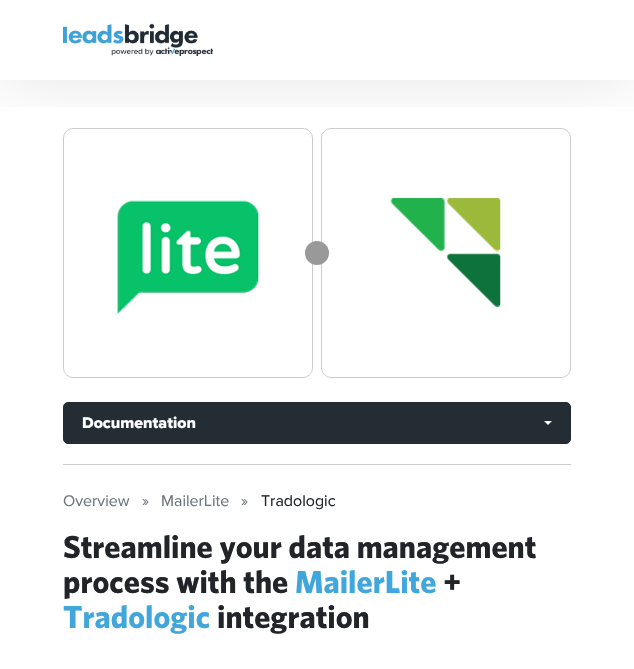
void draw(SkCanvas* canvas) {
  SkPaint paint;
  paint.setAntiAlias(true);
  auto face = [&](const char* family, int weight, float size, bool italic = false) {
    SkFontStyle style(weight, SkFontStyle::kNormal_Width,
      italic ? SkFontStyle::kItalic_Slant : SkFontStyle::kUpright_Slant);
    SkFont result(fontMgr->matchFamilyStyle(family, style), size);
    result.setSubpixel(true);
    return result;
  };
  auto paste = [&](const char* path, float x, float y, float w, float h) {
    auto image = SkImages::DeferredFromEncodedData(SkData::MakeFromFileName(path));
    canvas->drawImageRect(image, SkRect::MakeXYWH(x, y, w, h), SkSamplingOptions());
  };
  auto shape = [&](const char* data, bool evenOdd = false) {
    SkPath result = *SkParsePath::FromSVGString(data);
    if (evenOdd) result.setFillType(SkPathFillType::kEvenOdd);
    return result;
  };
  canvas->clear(0xffffffff);
  paint.setStroke(true);
  paint.setStrokeWidth(1);
  paint.setColor(0xffcccccc);
  canvas->drawRoundRect(SkRect::MakeXYWH(63.5f, 128.5f, 249, 249), 9.5f, 9.5f, paint);
  canvas->drawRoundRect(SkRect::MakeXYWH(321.5f, 128.5f, 249, 249), 9.5f, 9.5f, paint);
  canvas->save();
  canvas->clipRect(SkRect::MakeXYWH(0, 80, 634, 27));
  paint.setStroke(false);
  paint.setColor(0x1a000000);
  paint.setMaskFilter(SkMaskFilter::MakeBlur(kNormal_SkBlurStyle, 32.5f));
  canvas->drawRect(SkRect::MakeXYWH(0, 0, 634, 80), paint);
  paint.setMaskFilter(nullptr);
  canvas->restore();
  paste("img/1.png", 63, 23, 150, 33);
  paste("img/2.png", 117, 200, 142, 114);
  paint.setColor(0xff999999);
  canvas->drawCircle(317, 253, 12, paint);
  paste("img/3.png", 390, 198, 111, 109);
  paint.setColor(0xffcccccc);
  canvas->drawRect(SkRect::MakeXYWH(63, 464, 508, 1), paint);
  paint.setColor(0xff242c34);
  canvas->drawRoundRect(SkRect::MakeXYWH(63.5f, 402.5f, 507, 41), 4.5f, 4.5f, paint);
  paint.setStroke(true);
  canvas->drawRoundRect(SkRect::MakeXYWH(63.5f, 402.5f, 507, 41), 4.5f, 4.5f, paint);
  paint.setStroke(false);
  paint.setColor(0xffffffff);
  canvas->drawPath(shape("M544 421H552L548 425Z"), paint);
  auto f0 = face("Proxima Nova", 800, 16);
  canvas->drawString("Documentation", 82, 428, f0, paint);
  auto f1 = face("Proxima Nova", 400, 16);
  paint.setColor(0xff6c757d);
  {
    const struct { const char* s; float x, y; } items[] = {
      {"Overview", 63, 506},
      {"»", 142, 506},
      {"MailerLite", 161, 506},
      {"»", 241, 506},
    };
    for (auto [s, x, y] : items) {
      canvas->drawString(s, x, y, f1, paint);
    }
  }
  paint.setColor(0xff212529);
  canvas->drawString("Tradologic", 261, 506, f1, paint);
  auto f2 = face("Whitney", 700, 32);
  canvas->drawString("Streamline your data management", 63, 558, f2, paint);
  canvas->drawString("process with the", 63, 593, f2, paint);
  paint.setColor(0xff41a6dc);
  canvas->drawString("MailerLite", 295, 593, f2, paint);
  paint.setColor(0xff212529);
  canvas->drawString("+", 443, 593, f2, paint);
  paint.setColor(0xff41a6dc);
  canvas->drawString("Tradologic", 63, 628, f2, paint);
  paint.setColor(0xff212529);
  canvas->drawString("integration", 217, 628, f2, paint);
}
